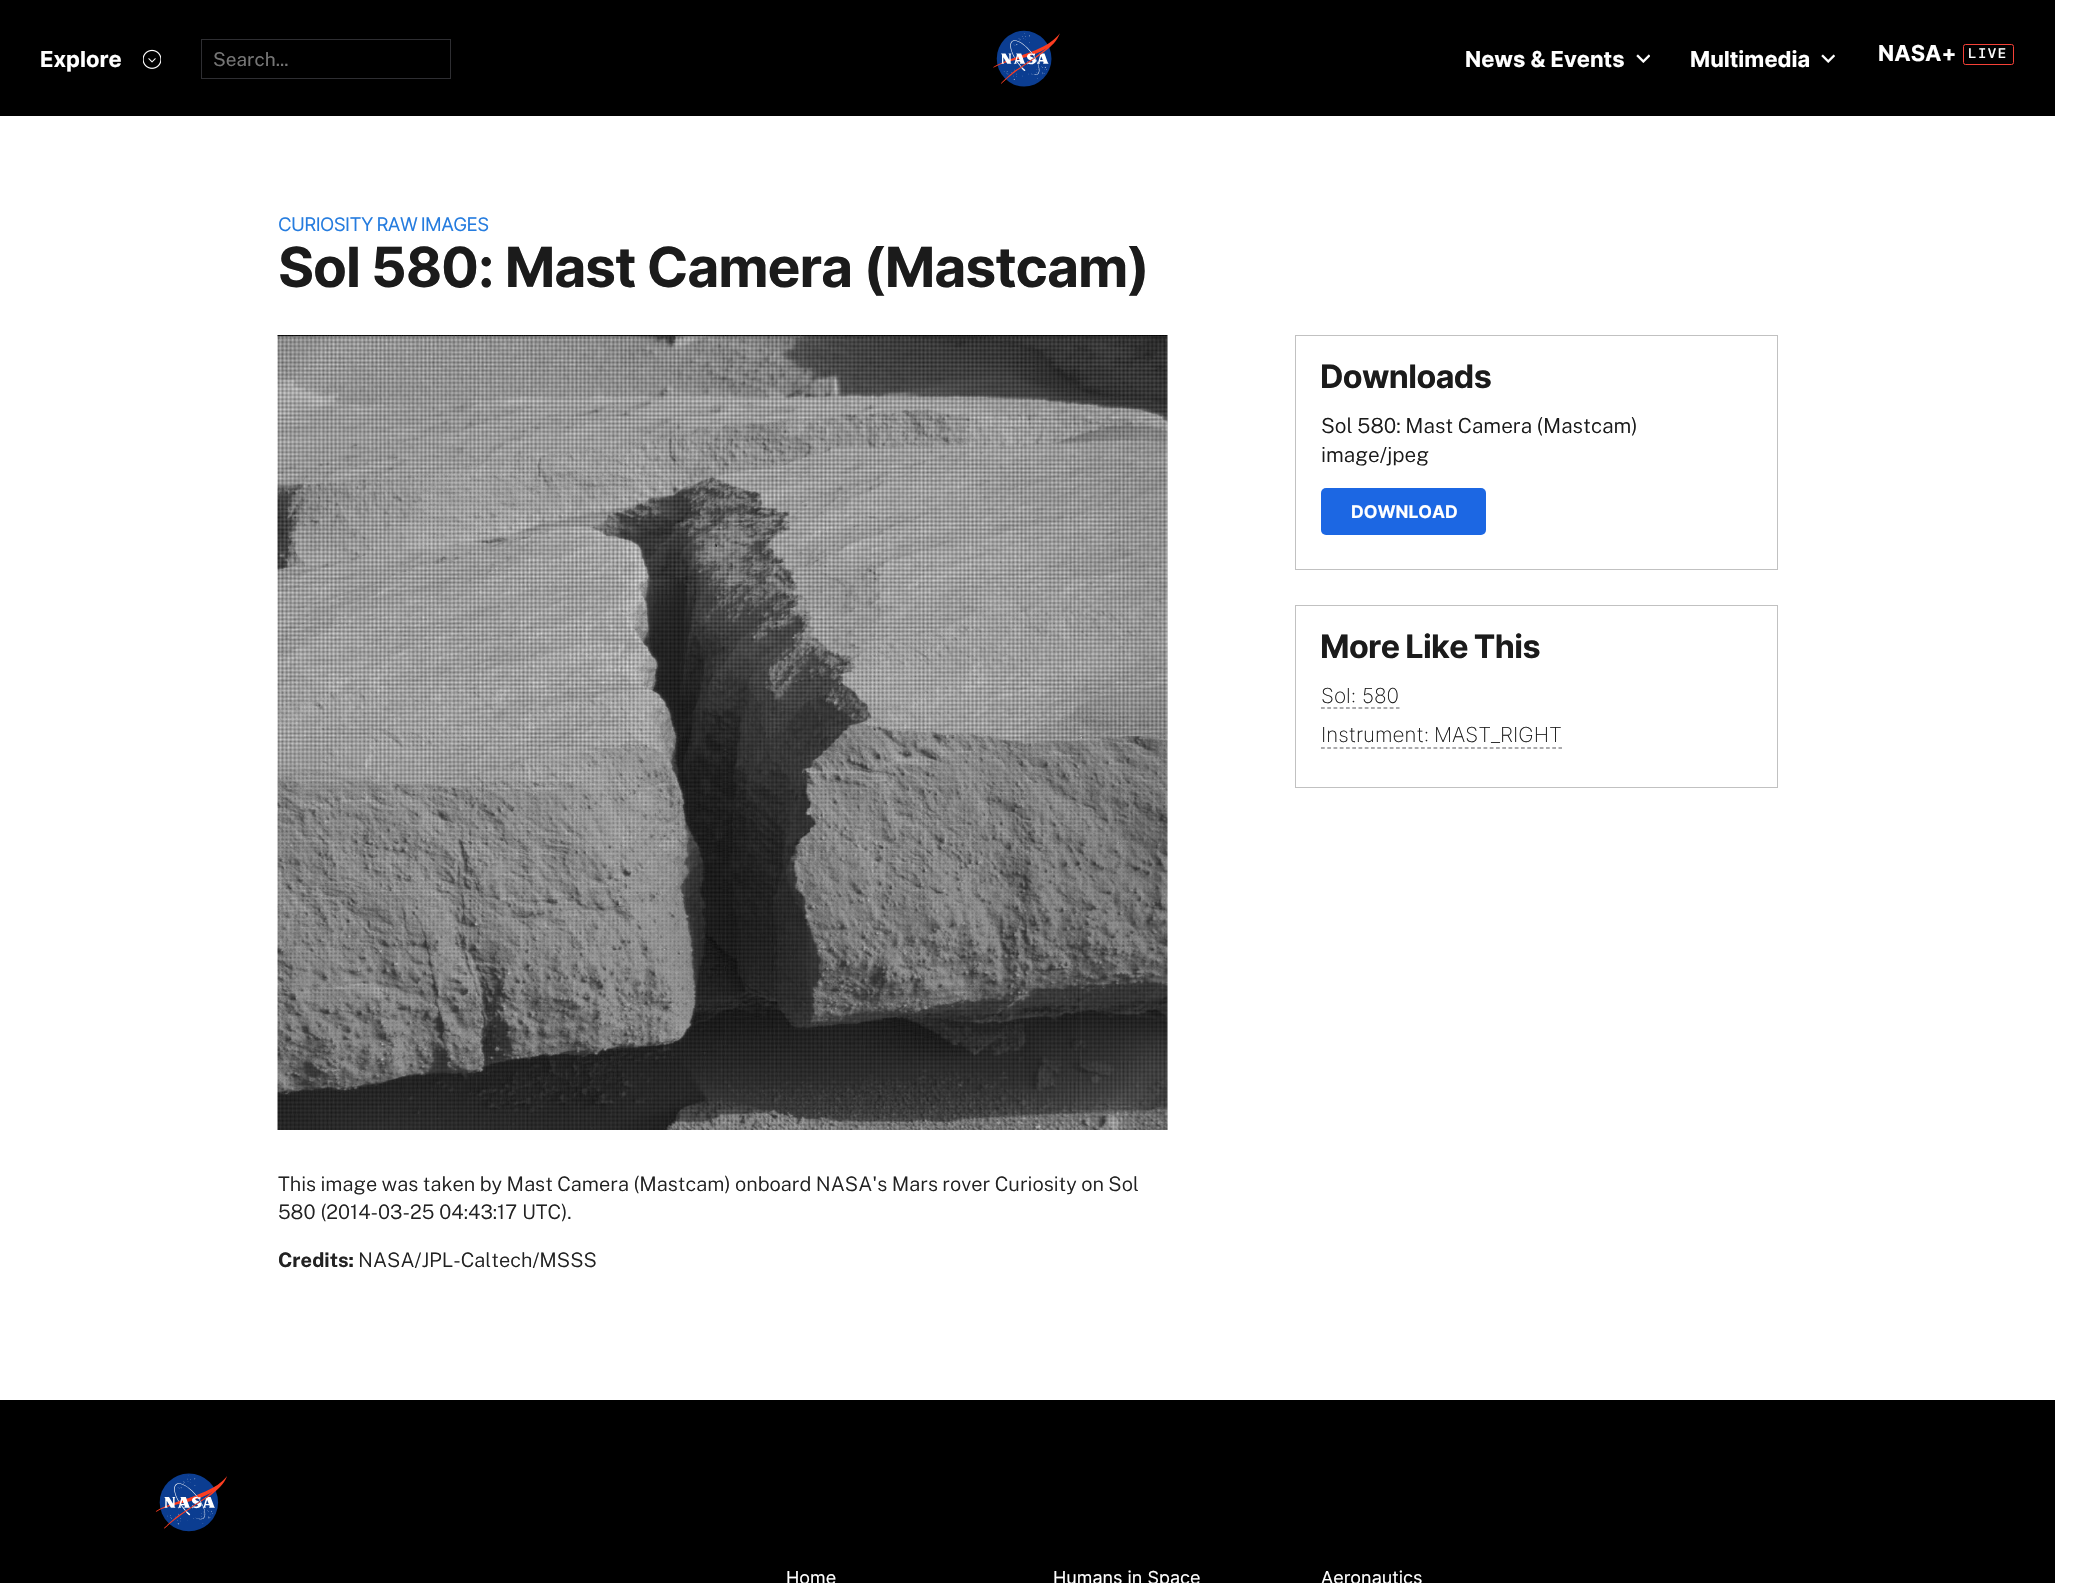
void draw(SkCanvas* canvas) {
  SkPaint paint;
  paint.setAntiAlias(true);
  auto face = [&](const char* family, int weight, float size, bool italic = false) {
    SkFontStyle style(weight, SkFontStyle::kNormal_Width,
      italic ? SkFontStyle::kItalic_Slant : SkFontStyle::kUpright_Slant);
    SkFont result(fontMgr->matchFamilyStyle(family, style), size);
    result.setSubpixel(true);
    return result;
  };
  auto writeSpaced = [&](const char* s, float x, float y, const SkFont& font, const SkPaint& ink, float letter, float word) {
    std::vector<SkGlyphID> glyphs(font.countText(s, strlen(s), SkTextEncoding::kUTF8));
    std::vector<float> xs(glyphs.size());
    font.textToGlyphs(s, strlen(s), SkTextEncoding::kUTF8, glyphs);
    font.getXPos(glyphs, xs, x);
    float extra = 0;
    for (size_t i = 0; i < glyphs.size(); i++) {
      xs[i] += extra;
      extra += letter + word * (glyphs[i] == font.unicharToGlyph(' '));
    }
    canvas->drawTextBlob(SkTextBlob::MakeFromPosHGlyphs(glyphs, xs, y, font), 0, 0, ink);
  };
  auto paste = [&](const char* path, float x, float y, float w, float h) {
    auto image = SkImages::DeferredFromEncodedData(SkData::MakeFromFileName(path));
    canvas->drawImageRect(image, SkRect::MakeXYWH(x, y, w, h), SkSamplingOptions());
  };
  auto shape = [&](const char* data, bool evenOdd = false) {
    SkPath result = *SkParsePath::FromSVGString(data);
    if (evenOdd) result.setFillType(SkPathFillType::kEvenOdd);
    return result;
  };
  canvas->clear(0xffffffff);
  paint.setColor(0xff000000);
  canvas->drawRect(SkRect::MakeXYWH(0, 0, 2055, 116), paint);
  paste("img/1.png", 143, 49, 18, 20);
  paint.setStroke(true);
  paint.setStrokeWidth(1);
  paint.setColor(0xff2e2e32);
  canvas->drawRect(SkRect::MakeXYWH(201.5f, 39.5f, 249, 39), paint);
  paste("img/2.png", 993, 30, 67, 57);
  paste("img/3.png", 1636, 54, 14, 9);
  paste("img/4.png", 1821, 54, 14, 9);
  paint.setColor(0xfff64137);
  canvas->drawRoundRect(SkRect::MakeXYWH(1963.5f, 44.5f, 50, 20), 2, 2, paint);
  paint.setColor(0xffc1c1c1);
  canvas->drawRect(SkRect::MakeXYWH(1295.5f, 335.5f, 482, 234), paint);
  paint.setStroke(false);
  paint.setColor(0xff1c67e3);
  canvas->drawRoundRect(SkRect::MakeXYWH(1321, 488, 165, 47), 5, 5, paint);
  paint.setStroke(true);
  paint.setColor(0xffc1c1c1);
  canvas->drawRect(SkRect::MakeXYWH(1295.5f, 605.5f, 482, 182), paint);
  paint.setStrokeWidth(1.2f);
  paint.setColor(0xff58585b);
  paint.setPathEffect(SkDashPathEffect::Make({{3.75f, 2.5f}}, 0));
  canvas->drawPath(shape("M1321 708H1399.5"), paint);
  paint.setPathEffect(nullptr);
  paint.setPathEffect(SkDashPathEffect::Make({{3.75f, 2.5f}}, 0));
  canvas->drawPath(shape("M1321 748H1562"), paint);
  paint.setPathEffect(nullptr);
  paste("img/5.png", 277, 335, 891, 795);
  paint.setStroke(false);
  paint.setColor(0xff000000);
  canvas->drawRect(SkRect::MakeXYWH(0, 1400, 2055, 183), paint);
  paste("img/6.png", 155, 1473, 72, 59);
  auto f0 = face("Inter", 700, 22);
  paint.setColor(0xffffffff);
  canvas->drawString("Explore", 40, 67, f0, paint);
  auto f1 = face("Public Sans", 400, 19);
  paint.setColor(0xff757575);
  canvas->drawString("Search...", 213, 66, f1, paint);
  paint.setColor(0xffffffff);
  {
    const struct { const char* s; float x, y; } items[] = {
      {"News & Events", 1465, 67},
      {"Multimedia", 1690, 67},
      {"NASA+", 1878, 61},
    };
    for (auto [s, x, y] : items) {
      canvas->drawString(s, x, y, f0, paint);
    }
  }
  auto f2 = face("DM Mono", 500, 14);
  writeSpaced("LIVE", 1968, 58, f2, paint, 1.5f, 0);
  auto f3 = face("Inter", 400, 18.75f);
  paint.setColor(0xff257cdf);
  writeSpaced("CURIOSITY RAW IMAGES", 278, 231, f3, paint, -0.6f, -1);
  auto f4 = face("Inter", 700, 55.3f);
  paint.setColor(0xff1b1b1b);
  writeSpaced("Sol 580: Mast Camera (Mastcam)", 278, 287, f4, paint, -1.1f, -0.5f);
  auto f5 = face("Inter", 700, 32.25f);
  writeSpaced("Downloads", 1320, 388, f5, paint, -0.6f, 0);
  auto f6 = face("Public Sans", 300, 20.75f);
  writeSpaced("Sol 580: Mast Camera (Mastcam)", 1321, 433, f6, paint, 0, -0.5f);
  canvas->drawString("image/jpeg", 1321, 462, f6, paint);
  auto f7 = face("Inter", 700, 17.5f);
  paint.setColor(0xffffffff);
  canvas->drawString("DOWNLOAD", 1351, 518, f7, paint);
  paint.setColor(0xff1b1b1b);
  writeSpaced("More Like This", 1320, 658, f5, paint, -0.6f, -1);
  auto f8 = face("Inter", 200, 20.75f);
  canvas->drawString("Sol: 580", 1321, 703, f8, paint);
  writeSpaced("Instrument: MAST_RIGHT", 1321, 742, f8, paint, 0, -1);
  auto f9 = face("Public Sans", 300, 20);
  paint.setColor(0xff222222);
  writeSpaced("This image was taken by Mast Camera (Mastcam) onboard NASA's Mars rover Curiosity on Sol", 278, 1191, f9, paint, 0, -0.5f);
  canvas->drawString("580 (2014-03-25 04:43:17 UTC).", 278, 1219, f9, paint);
  auto f10 = face("Public Sans", 700, 20);
  canvas->drawString("Credits:", 278, 1267, f10, paint);
  canvas->drawString("NASA/JPL-Caltech/MSSS", 358, 1267, f9, paint);
  auto f11 = face("Inter", 400, 18);
  paint.setColor(0xffffffff);
  {
    const struct { const char* s; float x, y; } items[] = {
      {"Home", 786, 1584},
      {"Humans in Space", 1053, 1584},
      {"Aeronautics", 1321, 1584},
    };
    for (auto [s, x, y] : items) {
      canvas->drawString(s, x, y, f11, paint);
    }
  }
}
